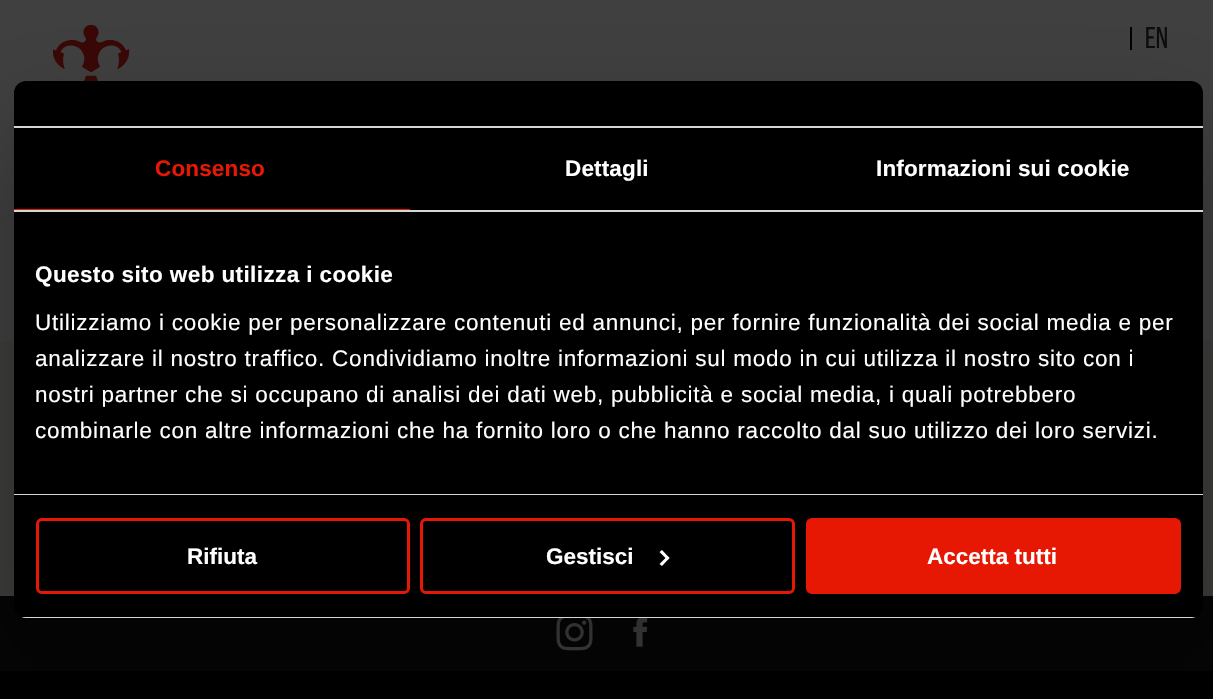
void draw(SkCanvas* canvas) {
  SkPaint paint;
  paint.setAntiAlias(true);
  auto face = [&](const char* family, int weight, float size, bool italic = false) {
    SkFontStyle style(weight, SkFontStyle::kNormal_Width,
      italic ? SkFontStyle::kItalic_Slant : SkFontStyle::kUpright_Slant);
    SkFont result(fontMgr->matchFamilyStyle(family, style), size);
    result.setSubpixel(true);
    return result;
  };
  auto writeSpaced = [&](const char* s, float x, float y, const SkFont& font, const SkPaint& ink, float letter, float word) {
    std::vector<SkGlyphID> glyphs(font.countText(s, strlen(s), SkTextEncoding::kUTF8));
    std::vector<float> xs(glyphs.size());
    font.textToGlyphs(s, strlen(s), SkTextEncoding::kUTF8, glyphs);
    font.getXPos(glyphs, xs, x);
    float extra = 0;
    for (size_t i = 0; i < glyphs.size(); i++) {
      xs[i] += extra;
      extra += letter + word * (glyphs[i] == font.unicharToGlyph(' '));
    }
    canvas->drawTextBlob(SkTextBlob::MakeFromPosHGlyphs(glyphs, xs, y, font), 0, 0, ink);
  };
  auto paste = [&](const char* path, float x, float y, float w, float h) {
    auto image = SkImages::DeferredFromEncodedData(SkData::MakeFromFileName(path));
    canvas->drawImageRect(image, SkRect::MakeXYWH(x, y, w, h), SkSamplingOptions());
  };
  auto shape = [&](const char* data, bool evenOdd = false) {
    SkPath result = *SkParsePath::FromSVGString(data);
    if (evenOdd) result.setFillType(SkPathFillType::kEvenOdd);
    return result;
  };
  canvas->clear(0xff404040);
  paste("img/1.png", 53, 24, 77, 57);
  {
    const struct { float x, y, w, h; SkColor color; } items[] = {
      {1130, 27, 2, 23, 0xff000000},
      {0, 341, 1213, 255, 0xff3d3d3b},
      {0, 671, 1213, 28, 0xff000000},
      {0, 596, 1213, 75, 0xff050505},
    };
    for (auto [x, y, w, h, color] : items) {
      paint.setColor(color);
      canvas->drawRect(SkRect::MakeXYWH(x, y, w, h), paint);
    }
  }
  paste("img/2.png", 556, 618, 37, 33);
  paste("img/3.png", 633, 618, 15, 29);
  paint.setColor(0x4d000000);
  paint.setMaskFilter(SkMaskFilter::MakeBlur(kNormal_SkBlurStyle, 51));
  canvas->drawRoundRect(SkRect::MakeXYWH(14, 129, 1189, 537), 12, 12, paint);
  paint.setMaskFilter(nullptr);
  paint.setColor(0xff000000);
  canvas->drawRoundRect(SkRect::MakeXYWH(14, 81, 1189, 537), 12, 12, paint);
  {
    const struct { float x, y, w, h; SkColor color; } items[] = {
      {14, 126, 1189, 2, 0xffd6d6d6},
      {14, 210, 1189, 2, 0xffd6d6d6},
      {14, 209, 396, 1, 0xffe61804},
      {14, 494, 1189, 1, 0xffd6d6d6},
    };
    for (auto [x, y, w, h, color] : items) {
      paint.setColor(color);
      canvas->drawRect(SkRect::MakeXYWH(x, y, w, h), paint);
    }
  }
  canvas->save();
  canvas->clipPath(shape("M26 81H1191C1197.5 81 1203 86.5 1203 93V606C1203 612.5 1197.5 618 1191 618H26C19.5 618 14 612.5 14 606V93C14 86.5 19.5 81 26 81Z"), true);
  canvas->drawRect(SkRect::MakeXYWH(14, 617, 1189, 1), paint);
  canvas->restore();
  paint.setStroke(true);
  paint.setStrokeWidth(3);
  paint.setColor(0xffe61804);
  canvas->drawRoundRect(SkRect::MakeXYWH(37.5f, 519.5f, 371, 73), 4.5f, 4.5f, paint);
  canvas->drawRoundRect(SkRect::MakeXYWH(421.5f, 519.5f, 372, 73), 4.5f, 4.5f, paint);
  paint.setStroke(false);
  paint.setColor(0xffffffff);
  canvas->drawPath(shape("M662 550L669.5 558L667.5 560L659.5 552Z"), paint);
  canvas->drawPath(shape("M667.5 556L669.5 558L662 566L659.5 564Z"), paint);
  paint.setColor(0xffe61804);
  canvas->drawRoundRect(SkRect::MakeXYWH(807.5f, 519.5f, 372, 73), 4.5f, 4.5f, paint);
  paint.setStroke(true);
  canvas->drawRoundRect(SkRect::MakeXYWH(807.5f, 519.5f, 372, 73), 4.5f, 4.5f, paint);
  auto f0 = face("Bebas Neue", 400, 30);
  paint.setStroke(false);
  paint.setColor(0xff0d0d0d);
  canvas->drawString("EN", 1145, 48, f0, paint);
  auto f1 = face("Liberation Sans", 700, 22.5f);
  paint.setColor(0xffe61804);
  writeSpaced("Consenso", 155, 176, f1, paint, 0.15f, 0);
  paint.setColor(0xffffffff);
  writeSpaced("Dettagli", 565, 176, f1, paint, 0.15f, 0);
  writeSpaced("Informazioni sui cookie", 876, 176, f1, paint, 0.15f, 0);
  writeSpaced("Questo sito web utilizza i cookie", 35, 282, f1, paint, 0.4f, 0);
  auto f2 = face("Liberation Sans", 400, 22.5f);
  {
    const struct { const char* s; float x, y; } items[] = {
      {"Utilizziamo i cookie per personalizzare contenuti ed annunci, per fornire funzionalità dei social media e per", 35, 330},
      {"analizzare il nostro traffico. Condividiamo inoltre informazioni sul modo in cui utilizza il nostro sito con i", 35, 366},
      {"nostri partner che si occupano di analisi dei dati web, pubblicità e social media, i quali potrebbero", 35, 402},
      {"combinarle con altre informazioni che ha fornito loro o che hanno raccolto dal suo utilizzo dei loro servizi.", 35, 438},
    };
    for (auto [s, x, y] : items) {
      writeSpaced(s, x, y, f2, paint, 0.75f, 0);
    }
  }
  {
    const struct { const char* s; float x, y; } items[] = {
      {"Rifiuta", 187, 564},
      {"Gestisci", 546, 564},
      {"Accetta tutti", 927, 564},
    };
    for (auto [s, x, y] : items) {
      canvas->drawString(s, x, y, f1, paint);
    }
  }
}
